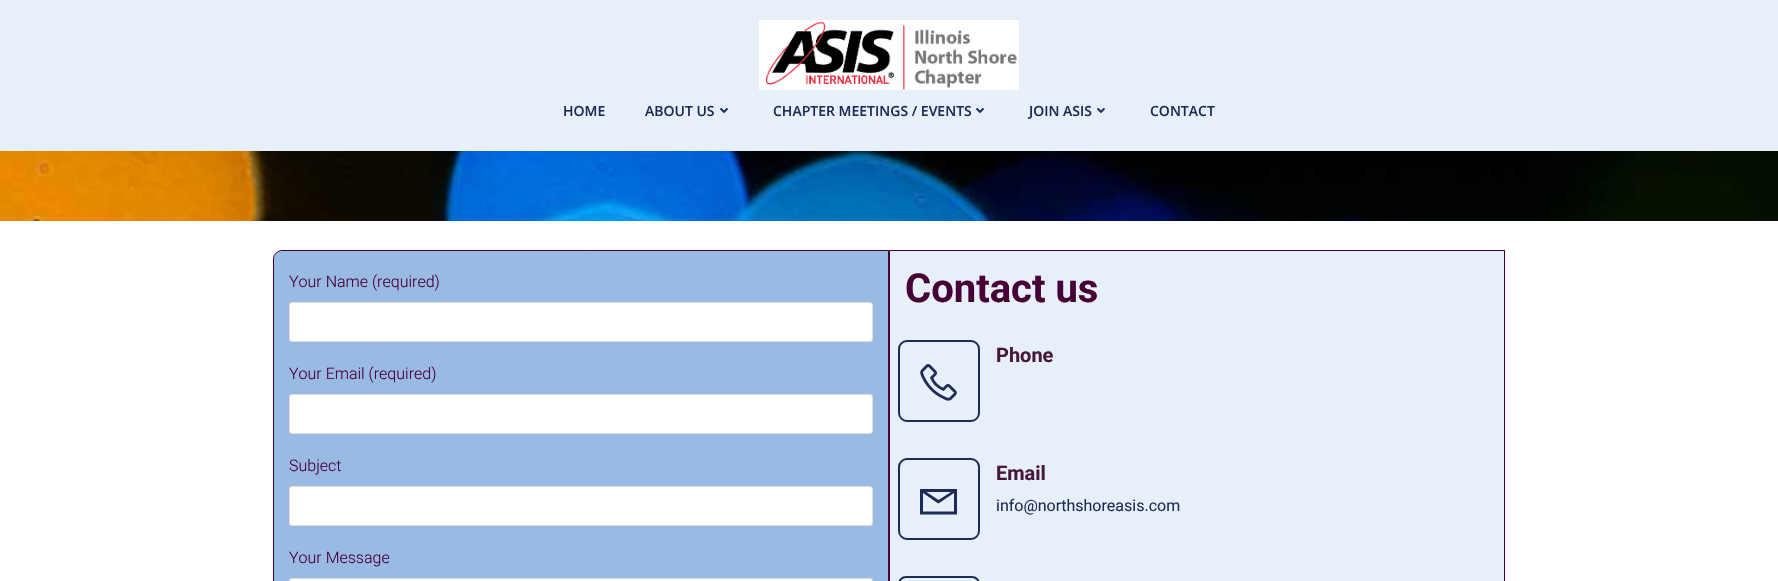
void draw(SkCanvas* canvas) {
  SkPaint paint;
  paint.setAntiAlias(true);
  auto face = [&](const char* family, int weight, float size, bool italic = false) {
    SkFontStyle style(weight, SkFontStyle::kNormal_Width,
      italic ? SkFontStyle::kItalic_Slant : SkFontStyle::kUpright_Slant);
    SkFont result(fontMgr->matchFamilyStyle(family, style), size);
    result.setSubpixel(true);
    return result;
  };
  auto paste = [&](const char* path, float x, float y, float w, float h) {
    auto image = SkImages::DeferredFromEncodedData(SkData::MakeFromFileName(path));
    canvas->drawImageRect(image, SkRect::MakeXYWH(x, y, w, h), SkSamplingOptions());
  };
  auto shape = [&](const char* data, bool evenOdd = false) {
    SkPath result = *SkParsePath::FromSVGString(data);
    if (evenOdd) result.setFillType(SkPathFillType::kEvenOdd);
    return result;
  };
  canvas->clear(0xffffffff);
  paint.setColor(0xffe7f0f9);
  canvas->drawRect(SkRect::MakeXYWH(0, 0, 1778, 151), paint);
  paste("img/1.png", 759, 20, 260, 70);
  paste("img/2.png", 720, 108, 8, 5);
  paste("img/2.png", 976, 108, 8, 5);
  paste("img/2.png", 1097, 108, 8, 5);
  paste("img/3.png", 0, 151, 1778, 70);
  paint.setColor(0xff99bbe3);
  canvas->drawPath(shape("M282 250.5H888.5V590.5H282C277.5 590.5 273.5 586.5 273.5 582V259C273.5 254.5 277.5 250.5 282 250.5Z"), paint);
  paint.setStroke(true);
  paint.setStrokeWidth(1);
  paint.setColor(0xff470037);
  canvas->drawPath(shape("M282 250.5H888.5V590.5H282C277.5 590.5 273.5 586.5 273.5 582V259C273.5 254.5 277.5 250.5 282 250.5Z"), paint);
  paint.setStroke(false);
  paint.setColor(0xffffffff);
  canvas->drawRoundRect(SkRect::MakeXYWH(289.5f, 302.5f, 583, 39), 2.5f, 2.5f, paint);
  paint.setStroke(true);
  paint.setColor(0xffdedede);
  canvas->drawRoundRect(SkRect::MakeXYWH(289.5f, 302.5f, 583, 39), 2.5f, 2.5f, paint);
  paint.setStroke(false);
  paint.setColor(0xffffffff);
  canvas->drawRoundRect(SkRect::MakeXYWH(289.5f, 394.5f, 583, 39), 2.5f, 2.5f, paint);
  paint.setStroke(true);
  paint.setColor(0xffdedede);
  canvas->drawRoundRect(SkRect::MakeXYWH(289.5f, 394.5f, 583, 39), 2.5f, 2.5f, paint);
  paint.setStroke(false);
  paint.setColor(0xffffffff);
  canvas->drawRoundRect(SkRect::MakeXYWH(289.5f, 486.5f, 583, 39), 2.5f, 2.5f, paint);
  paint.setStroke(true);
  paint.setColor(0xffdedede);
  canvas->drawRoundRect(SkRect::MakeXYWH(289.5f, 486.5f, 583, 39), 2.5f, 2.5f, paint);
  paint.setStroke(false);
  paint.setColor(0xffffffff);
  canvas->drawRoundRect(SkRect::MakeXYWH(289.5f, 578.5f, 583, 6), 2.5f, 2.5f, paint);
  paint.setStroke(true);
  paint.setColor(0xffdedede);
  canvas->drawRoundRect(SkRect::MakeXYWH(289.5f, 578.5f, 583, 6), 2.5f, 2.5f, paint);
  paint.setStroke(false);
  paint.setColor(0xffe7f0f9);
  canvas->drawRect(SkRect::MakeXYWH(889.5f, 250.5f, 615, 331), paint);
  paint.setStroke(true);
  paint.setColor(0xff470037);
  canvas->drawRect(SkRect::MakeXYWH(889.5f, 250.5f, 615, 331), paint);
  paint.setStrokeWidth(2);
  paint.setColor(0xff1f2b57);
  canvas->drawRoundRect(SkRect::MakeXYWH(899, 341, 80, 80), 8, 8, paint);
  paste("img/4.png", 920, 364, 37, 37);
  canvas->drawRoundRect(SkRect::MakeXYWH(899, 459, 80, 80), 8, 8, paint);
  paint.setStroke(false);
  canvas->drawPath(shape("M920 489H957V514.5H920ZM926.5 492L938.5 500L951 492ZM923 493V511.5H954V493L938.5 503.5L937.5 503Z"), paint);
  paint.setStroke(true);
  canvas->drawRoundRect(SkRect::MakeXYWH(899, 577, 80, 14), 8, 8, paint);
  auto f0 = face("Open Sans", 600, 14);
  paint.setStroke(false);
  {
    const struct { const char* s; float x, y; } items[] = {
      {"HOME", 563, 116},
      {"ABOUT US", 645, 116},
      {"CHAPTER MEETINGS / EVENTS", 773, 116},
      {"JOIN ASIS", 1029, 116},
      {"CONTACT", 1150, 116},
    };
    for (auto [s, x, y] : items) {
      canvas->drawString(s, x, y, f0, paint);
    }
  }
  auto f1 = face("Roboto", 300, 16);
  paint.setColor(0xff470037);
  {
    const struct { const char* s; float x, y; } items[] = {
      {"Your Name (required)", 289, 287},
      {"Your Email (required)", 289, 379},
      {"Subject", 289, 471},
      {"Your Message", 289, 563},
    };
    for (auto [s, x, y] : items) {
      canvas->drawString(s, x, y, f1, paint);
    }
  }
  auto f2 = face("Roboto", 700, 40);
  canvas->drawString("Contact us", 905, 302, f2, paint);
  auto f3 = face("Roboto", 700, 20);
  paint.setColor(0xff47183c);
  canvas->drawString("Phone", 996, 362, f3, paint);
  canvas->drawString("Email", 996, 480, f3, paint);
  auto f4 = face("Roboto", 400, 16);
  paint.setColor(0xff1f2b57);
  canvas->drawString("info@northshoreasis.com", 996, 511, f4, paint);
}
